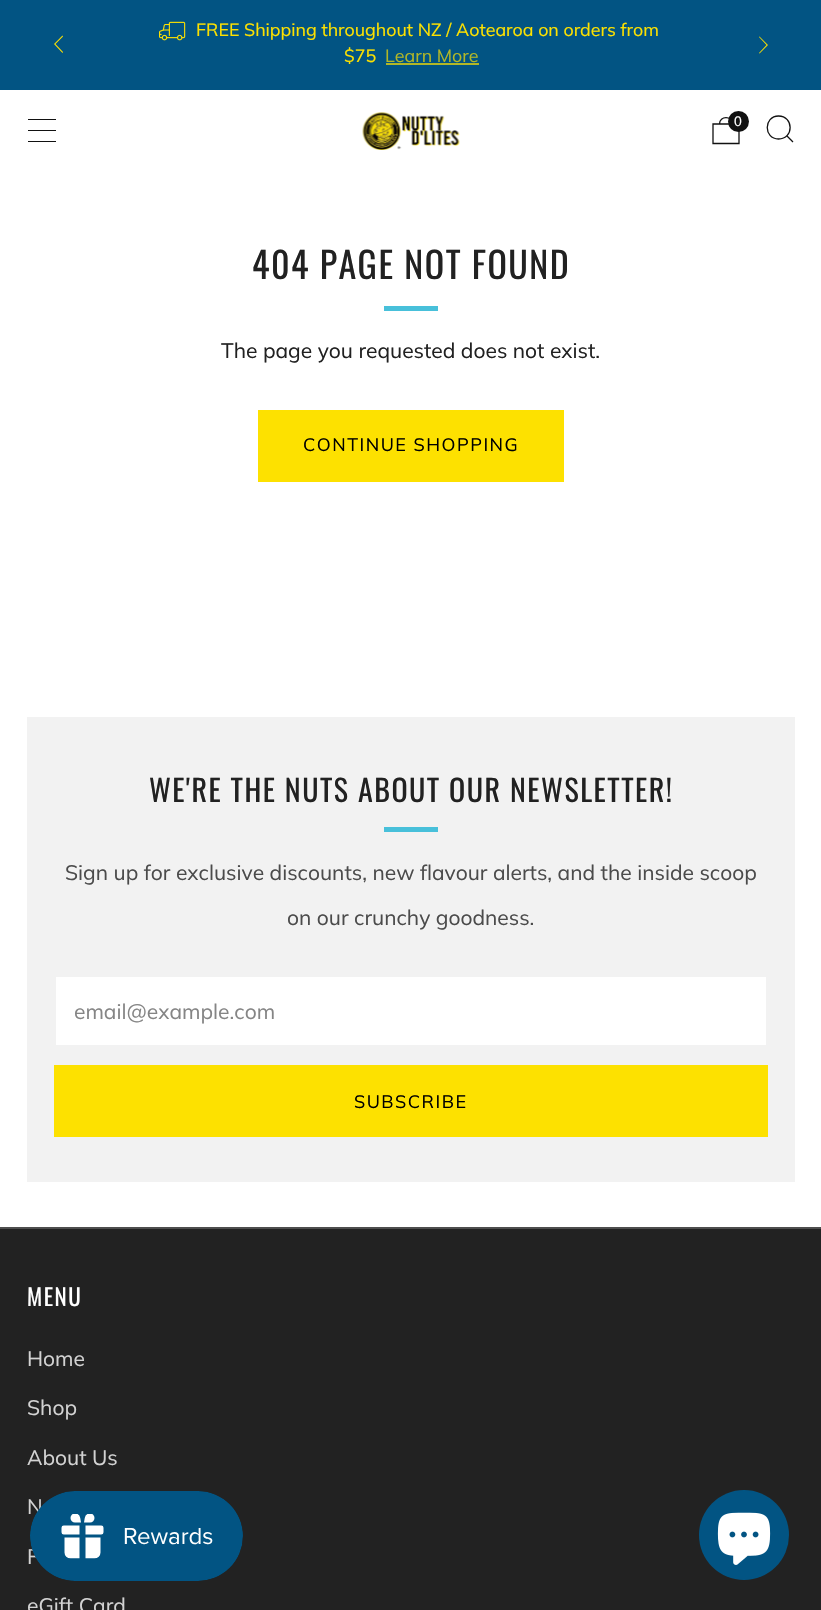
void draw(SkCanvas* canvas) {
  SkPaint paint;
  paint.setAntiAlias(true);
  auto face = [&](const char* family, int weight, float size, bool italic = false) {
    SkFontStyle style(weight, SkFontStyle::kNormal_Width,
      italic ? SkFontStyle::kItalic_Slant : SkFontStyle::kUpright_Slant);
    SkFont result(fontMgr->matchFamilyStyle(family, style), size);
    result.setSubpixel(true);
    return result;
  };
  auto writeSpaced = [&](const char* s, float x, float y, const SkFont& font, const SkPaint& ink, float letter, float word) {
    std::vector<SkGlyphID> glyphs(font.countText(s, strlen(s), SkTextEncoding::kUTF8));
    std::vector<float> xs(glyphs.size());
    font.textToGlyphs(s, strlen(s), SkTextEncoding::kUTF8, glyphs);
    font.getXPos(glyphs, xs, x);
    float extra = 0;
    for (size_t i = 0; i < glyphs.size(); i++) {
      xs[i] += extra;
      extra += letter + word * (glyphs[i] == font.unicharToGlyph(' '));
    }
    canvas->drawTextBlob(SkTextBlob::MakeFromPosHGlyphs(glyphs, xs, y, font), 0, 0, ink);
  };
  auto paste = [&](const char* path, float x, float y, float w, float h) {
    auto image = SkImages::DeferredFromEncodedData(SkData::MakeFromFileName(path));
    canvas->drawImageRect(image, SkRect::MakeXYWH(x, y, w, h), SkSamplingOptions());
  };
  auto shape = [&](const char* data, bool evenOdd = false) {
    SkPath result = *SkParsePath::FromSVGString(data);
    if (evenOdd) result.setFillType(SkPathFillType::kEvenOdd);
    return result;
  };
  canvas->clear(0xffffffff);
  paint.setColor(0xff025483);
  canvas->drawRect(SkRect::MakeXYWH(0, 0, 821, 90), paint);
  paint.setColor(0xfffde100);
  canvas->drawPath(shape("M63 52L62.5 53L54 44L62.5 35.5L63 36.5L55.5 44Z"), paint);
  paste("img/1.png", 159, 21, 27, 20);
  paint.setColor(0xffb2b727);
  canvas->drawRect(SkRect::MakeXYWH(386, 63, 93, 2), paint);
  paint.setColor(0xfffde100);
  canvas->drawPath(shape("M759 53L759.5 53.5L768 45L759.5 36.5L759 37L766.5 45Z"), paint);
  {
    const struct { float x, y, w, h; SkColor color; } items[] = {
      {28, 119, 28, 1, 0xff111111},
      {28, 130, 28, 1, 0xff111111},
      {28, 141, 28, 1, 0xff111111},
    };
    for (auto [x, y, w, h, color] : items) {
      paint.setColor(color);
      canvas->drawRect(SkRect::MakeXYWH(x, y, w, h), paint);
    }
  }
  paste("img/2.png", 362, 112, 98, 38);
  paint.setStroke(true);
  paint.setStrokeWidth(1.3f);
  canvas->drawPath(shape("M713 124H739V143.5H713ZM732.5 124C732.5 115.5 719.5 115.5 719.5 124"), paint);
  paint.setStroke(false);
  canvas->drawCircle(738.5f, 121.5f, 10.5f, paint);
  paint.setStroke(true);
  canvas->drawPath(shape("M778.5 139C794 139 794 116 778.5 116C763.5 116 763.5 139 778.5 139ZM787 136L793 142"), paint);
  paint.setStroke(false);
  {
    const struct { float x, y, w, h; SkColor color; } items[] = {
      {384, 306, 54, 5, 0xff48c0da},
      {258, 410, 306, 72, 0xfffde100},
      {27, 717, 768, 465, 0xfff2f2f2},
      {384, 827, 54, 5, 0xff48c0da},
      {56, 977, 710, 68, 0xffffffff},
      {54, 1065, 714, 72, 0xfffde100},
      {0, 1229, 821, 381, 0xff222222},
      {0, 1227, 821, 2, 0xff4e4e4e},
    };
    for (auto [x, y, w, h, color] : items) {
      paint.setColor(color);
      canvas->drawRect(SkRect::MakeXYWH(x, y, w, h), paint);
    }
  }
  paint.setColor(0xff025483);
  canvas->drawCircle(744, 1535, 45, paint);
  paste("img/4.png", 717, 1512, 54, 53);
  auto f0 = face("Muli", 400, 17.85f);
  paint.setColor(0xfffde100);
  canvas->drawString("FREE Shipping throughout NZ / Aotearoa on orders from", 196, 36, f0, paint);
  canvas->drawString("$75", 344, 62, f0, paint);
  paint.setColor(0xffb2b727);
  canvas->drawString("Learn More", 385, 62, f0, paint);
  auto f1 = face("Liberation Sans", 400, 14);
  paint.setColor(0xffffffff);
  canvas->drawString("0", 734, 126, f1, paint);
  auto f2 = face("Oswald", 400, 36);
  paint.setColor(0xff212121);
  writeSpaced("404 PAGE NOT FOUND", 252, 279, f2, paint, 1.5f, 0);
  auto f3 = face("Muli", 400, 21);
  canvas->drawString("The page you requested does not exist.", 221, 358, f3, paint);
  auto f4 = face("Muli", 400, 18);
  paint.setColor(0xff000000);
  writeSpaced("CONTINUE SHOPPING", 303, 451, f4, paint, 1.5f, 0);
  auto f5 = face("Oswald", 400, 30);
  paint.setColor(0xff212121);
  writeSpaced("WE'RE THE NUTS ABOUT OUR NEWSLETTER!", 149, 802, f5, paint, 1.5f, 0);
  paint.setColor(0xff4b4b4b);
  canvas->drawString("Sign up for exclusive discounts, new flavour alerts, and the inside scoop", 65, 880, f3, paint);
  canvas->drawString("on our crunchy goodness.", 287, 925, f3, paint);
  paint.setColor(0xff858585);
  canvas->drawString("email@example.com", 74, 1019, f3, paint);
  paint.setColor(0xff000000);
  writeSpaced("SUBSCRIBE", 354, 1108, f4, paint, 1.5f, 0);
  auto f6 = face("Oswald", 400, 23);
  paint.setColor(0xffffffff);
  writeSpaced("MENU", 27, 1306, f6, paint, 1.5f, 0);
  paint.setColor(0xffd3d3d3);
  {
    const struct { const char* s; float x, y; } items[] = {
      {"Home", 27, 1366},
      {"Shop", 27, 1415},
      {"About Us", 27, 1465},
      {"N", 27, 1514},
      {"F", 27, 1564},
      {"eGift Card", 27, 1613},
    };
    for (auto [s, x, y] : items) {
      canvas->drawString(s, x, y, f3, paint);
    }
  }
  paste("img/3.png", 30, 1491, 213, 90);
}
